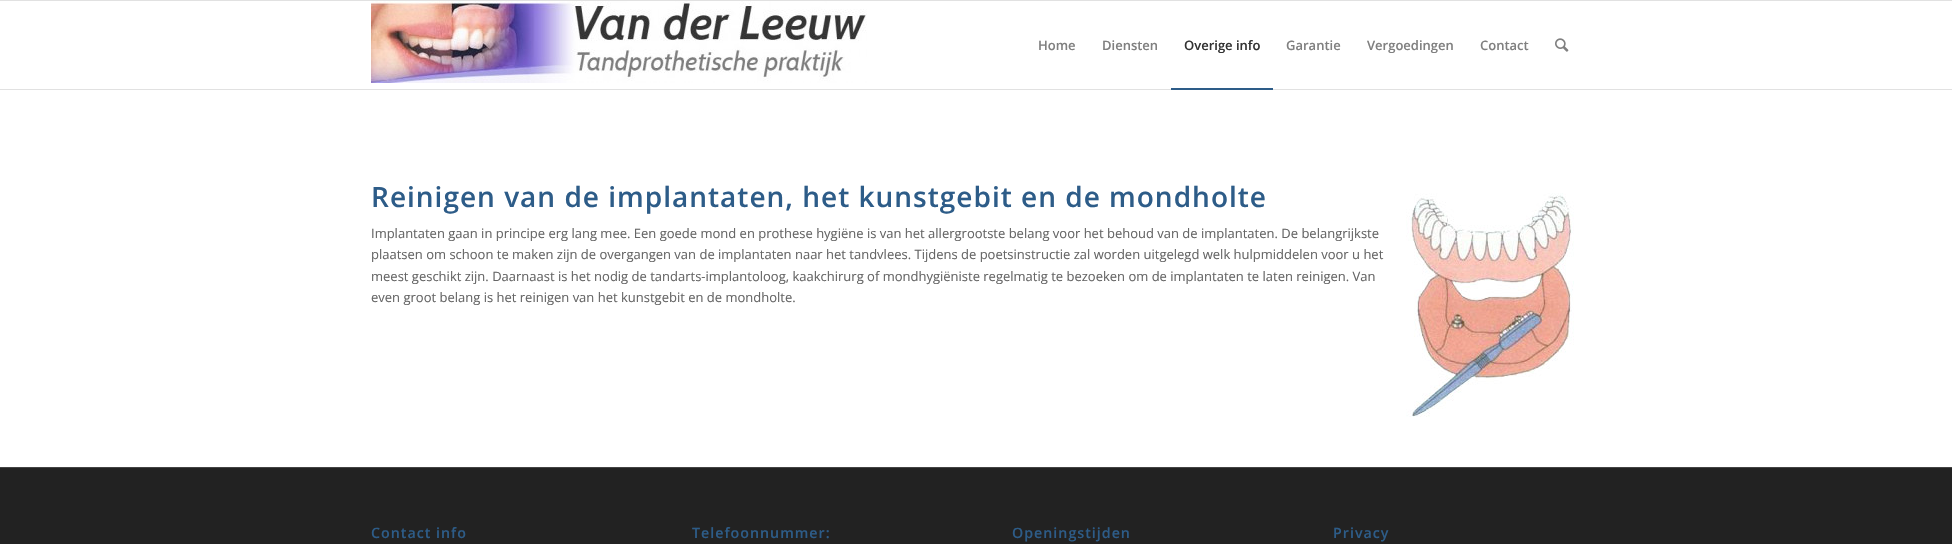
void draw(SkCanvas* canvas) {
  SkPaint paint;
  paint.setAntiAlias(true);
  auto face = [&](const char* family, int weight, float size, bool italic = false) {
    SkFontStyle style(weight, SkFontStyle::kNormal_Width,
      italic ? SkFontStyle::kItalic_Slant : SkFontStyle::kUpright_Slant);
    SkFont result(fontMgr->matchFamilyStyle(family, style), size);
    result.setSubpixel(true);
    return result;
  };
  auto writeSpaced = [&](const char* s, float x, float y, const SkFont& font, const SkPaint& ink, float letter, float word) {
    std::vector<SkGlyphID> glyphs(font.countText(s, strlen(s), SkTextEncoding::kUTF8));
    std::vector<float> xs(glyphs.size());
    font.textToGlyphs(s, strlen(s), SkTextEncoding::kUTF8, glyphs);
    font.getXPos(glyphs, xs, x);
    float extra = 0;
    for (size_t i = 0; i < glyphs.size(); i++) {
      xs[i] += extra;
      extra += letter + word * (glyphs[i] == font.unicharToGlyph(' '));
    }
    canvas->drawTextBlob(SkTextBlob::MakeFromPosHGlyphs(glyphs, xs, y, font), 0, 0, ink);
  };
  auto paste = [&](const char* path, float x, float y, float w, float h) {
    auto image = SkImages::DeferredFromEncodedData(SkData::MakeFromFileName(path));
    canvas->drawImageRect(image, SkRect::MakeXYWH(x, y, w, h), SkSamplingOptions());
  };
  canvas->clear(0xffffffff);
  paint.setColor(0xffe1e1e1);
  canvas->drawRect(SkRect::MakeXYWH(0, 0, 1952, 1), paint);
  canvas->drawRect(SkRect::MakeXYWH(0, 89, 1952, 1), paint);
  paste("img/1.png", 371, 1, 496, 82);
  paint.setColor(0xff2d5c88);
  canvas->drawRect(SkRect::MakeXYWH(1171, 88, 102, 2), paint);
  paste("img/2.png", 1555, 38, 14, 14);
  paste("img/3.png", 1406, 193, 168, 224);
  paint.setColor(0xff222222);
  canvas->drawRect(SkRect::MakeXYWH(0, 468, 1952, 76), paint);
  paint.setColor(0xff444444);
  canvas->drawRect(SkRect::MakeXYWH(0, 467, 1952, 1), paint);
  auto f0 = face("Open Sans", 600, 13);
  paint.setColor(0xff808080);
  canvas->drawString("Home", 1038, 50, f0, paint);
  canvas->drawString("Diensten", 1102, 50, f0, paint);
  paint.setColor(0xff333333);
  canvas->drawString("Overige info", 1184, 50, f0, paint);
  paint.setColor(0xff808080);
  {
    const struct { const char* s; float x, y; } items[] = {
      {"Garantie", 1286, 50},
      {"Vergoedingen", 1367, 50},
      {"Contact", 1480, 50},
    };
    for (auto [s, x, y] : items) {
      canvas->drawString(s, x, y, f0, paint);
    }
  }
  auto f1 = face("Open Sans", 600, 28);
  paint.setColor(0xff2d5c88);
  writeSpaced("Reinigen van de implantaten, het kunstgebit en de mondholte", 371, 207, f1, paint, 1, 0);
  auto f2 = face("Open Sans", 400, 13);
  paint.setColor(0xff666666);
  {
    const struct { const char* s; float x, y; } items[] = {
      {"Implantaten gaan in principe erg lang mee. Een goede mond en prothese hygiëne is van het allergrootste belang voor het behoud van de implantaten. De belangrijkste", 371, 238},
      {"plaatsen om schoon te maken zijn de overgangen van de implantaten naar het tandvlees. Tijdens de poetsinstructie zal worden uitgelegd welk hulpmiddelen voor u het", 371, 259},
      {"meest geschikt zijn. Daarnaast is het nodig de tandarts-implantoloog, kaakchirurg of mondhygiëniste regelmatig te bezoeken om de implantaten te laten reinigen. Van", 371, 281},
      {"even groot belang is het reinigen van het kunstgebit en de mondholte.", 371, 302},
    };
    for (auto [s, x, y] : items) {
      canvas->drawString(s, x, y, f2, paint);
    }
  }
  auto f3 = face("Open Sans", 600, 14.25f);
  paint.setColor(0xff2d5c88);
  {
    const struct { const char* s; float x, y; } items[] = {
      {"Contact info", 371, 538},
      {"Telefoonnummer:", 692, 538},
      {"Openingstijden", 1012, 538},
      {"Privacy", 1333, 538},
    };
    for (auto [s, x, y] : items) {
      writeSpaced(s, x, y, f3, paint, 1, 0);
    }
  }
}
